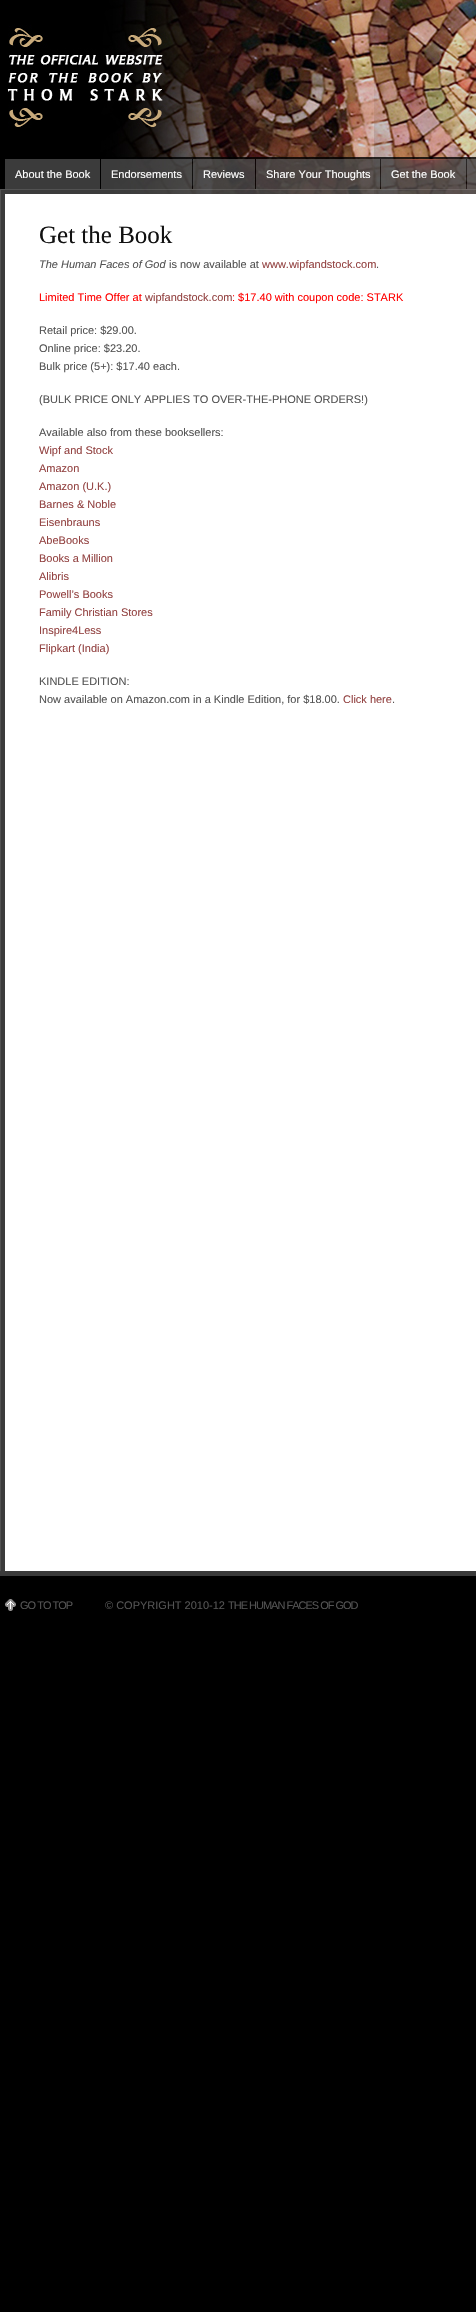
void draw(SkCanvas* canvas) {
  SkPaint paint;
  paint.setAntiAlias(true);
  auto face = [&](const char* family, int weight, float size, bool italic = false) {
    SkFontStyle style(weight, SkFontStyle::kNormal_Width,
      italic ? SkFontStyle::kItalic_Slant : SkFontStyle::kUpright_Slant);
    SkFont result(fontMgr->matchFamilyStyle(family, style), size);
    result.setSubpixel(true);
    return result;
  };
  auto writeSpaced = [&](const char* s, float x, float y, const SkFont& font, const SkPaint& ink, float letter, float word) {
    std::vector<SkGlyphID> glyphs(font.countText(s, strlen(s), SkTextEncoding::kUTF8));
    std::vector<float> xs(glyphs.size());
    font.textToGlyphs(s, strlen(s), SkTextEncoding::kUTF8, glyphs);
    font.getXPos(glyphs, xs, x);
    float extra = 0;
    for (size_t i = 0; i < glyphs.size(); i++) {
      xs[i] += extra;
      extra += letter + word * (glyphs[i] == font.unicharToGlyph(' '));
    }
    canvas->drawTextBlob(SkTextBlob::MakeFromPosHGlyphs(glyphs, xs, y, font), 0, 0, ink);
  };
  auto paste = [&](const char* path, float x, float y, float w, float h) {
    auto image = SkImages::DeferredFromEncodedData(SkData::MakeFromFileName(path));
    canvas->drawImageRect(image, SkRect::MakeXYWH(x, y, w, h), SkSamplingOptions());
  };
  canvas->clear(0xff000000);
  paste("img/1.png", 7, 0, 469, 194);
  paste("img/2.png", 0, 189, 476, 11);
  {
    const struct { float x, y, w, h; SkColor color; } items[] = {
      {5, 159, 95, 30, 0xff3b3b3b},
      {101, 159, 91, 30, 0x3bffffff},
      {193, 159, 62, 30, 0x3bffffff},
      {256, 159, 124, 30, 0x3bffffff},
    };
    for (auto [x, y, w, h, color] : items) {
      paint.setColor(color);
      canvas->drawRect(SkRect::MakeXYWH(x, y, w, h), paint);
    }
  }
  paste("img/3.png", 381, 159, 82, 14);
  canvas->drawRect(SkRect::MakeXYWH(381, 159, 85, 30), paint);
  canvas->drawRect(SkRect::MakeXYWH(467, 159, 9, 30), paint);
  paste("img/4.png", 0, 200, 476, 1371);
  paint.setColor(0xff3b3b3b);
  canvas->drawRect(SkRect::MakeXYWH(0, 1571, 476, 5), paint);
  paste("img/5.png", 5, 1599, 11, 12);
  auto f0 = face("Liberation Sans", 400, 11);
  paint.setColor(0xffffffff);
  {
    const struct { const char* s; float x, y; } items[] = {
      {"About the Book", 15, 178},
      {"Endorsements", 111, 178},
      {"Reviews", 203, 178},
      {"Share Your Thoughts", 266, 178},
      {"Get the Book", 391, 178},
    };
    for (auto [s, x, y] : items) {
      canvas->drawString(s, x, y, f0, paint);
    }
  }
  auto f1 = face("Liberation Serif", 400, 25);
  paint.setColor(0xff111111);
  canvas->drawString("Get the Book", 39, 243, f1, paint);
  auto f2 = face("Liberation Sans", 400, 11, true);
  paint.setColor(0xff535353);
  canvas->drawString("The Human Faces of God", 39, 268, f2, paint);
  canvas->drawString("is now available at", 169, 268, f0, paint);
  paint.setColor(0xff934342);
  canvas->drawString("www.wipfandstock.com", 262, 268, f0, paint);
  paint.setColor(0xff535353);
  canvas->drawString(".", 376, 268, f0, paint);
  paint.setColor(0xffff0000);
  canvas->drawString("Limited Time Offer at", 39, 301, f0, paint);
  paint.setColor(0xff934342);
  canvas->drawString("wipfandstock.com", 145, 301, f0, paint);
  paint.setColor(0xffff0000);
  canvas->drawString(": $17.40 with coupon code: STARK", 232, 301, f0, paint);
  paint.setColor(0xff535353);
  {
    const struct { const char* s; float x, y; } items[] = {
      {"Retail price: $29.00.", 39, 334},
      {"Online price: $23.20.", 39, 352},
      {"Bulk price (5+): $17.40 each.", 39, 370},
      {"(BULK PRICE ONLY APPLIES TO OVER-THE-PHONE ORDERS!)", 39, 403},
      {"Available also from these booksellers:", 39, 436},
    };
    for (auto [s, x, y] : items) {
      canvas->drawString(s, x, y, f0, paint);
    }
  }
  paint.setColor(0xff934342);
  {
    const struct { const char* s; float x, y; } items[] = {
      {"Wipf and Stock", 39, 454},
      {"Amazon", 39, 472},
      {"Amazon (U.K.)", 39, 490},
      {"Barnes & Noble", 39, 508},
      {"Eisenbrauns", 39, 526},
      {"AbeBooks", 39, 544},
      {"Books a Million", 39, 562},
      {"Alibris", 39, 580},
      {"Powell’s Books", 39, 598},
      {"Family Christian Stores", 39, 616},
      {"Inspire4Less", 39, 634},
      {"Flipkart (India)", 39, 652},
    };
    for (auto [s, x, y] : items) {
      canvas->drawString(s, x, y, f0, paint);
    }
  }
  paint.setColor(0xff535353);
  canvas->drawString("KINDLE EDITION:", 39, 685, f0, paint);
  canvas->drawString("Now available on Amazon.com in a Kindle Edition, for $18.00.", 39, 703, f0, paint);
  paint.setColor(0xff934342);
  canvas->drawString("Click here", 343, 703, f0, paint);
  paint.setColor(0xff535353);
  canvas->drawString(".", 392, 703, f0, paint);
  writeSpaced("GO TO TOP", 20, 1609, f0, paint, -1, 0);
  canvas->drawString("© COPYRIGHT 2010-12", 105, 1609, f0, paint);
  writeSpaced("THE HUMAN FACES OF GOD", 228, 1609, f0, paint, -1, 0);
}
